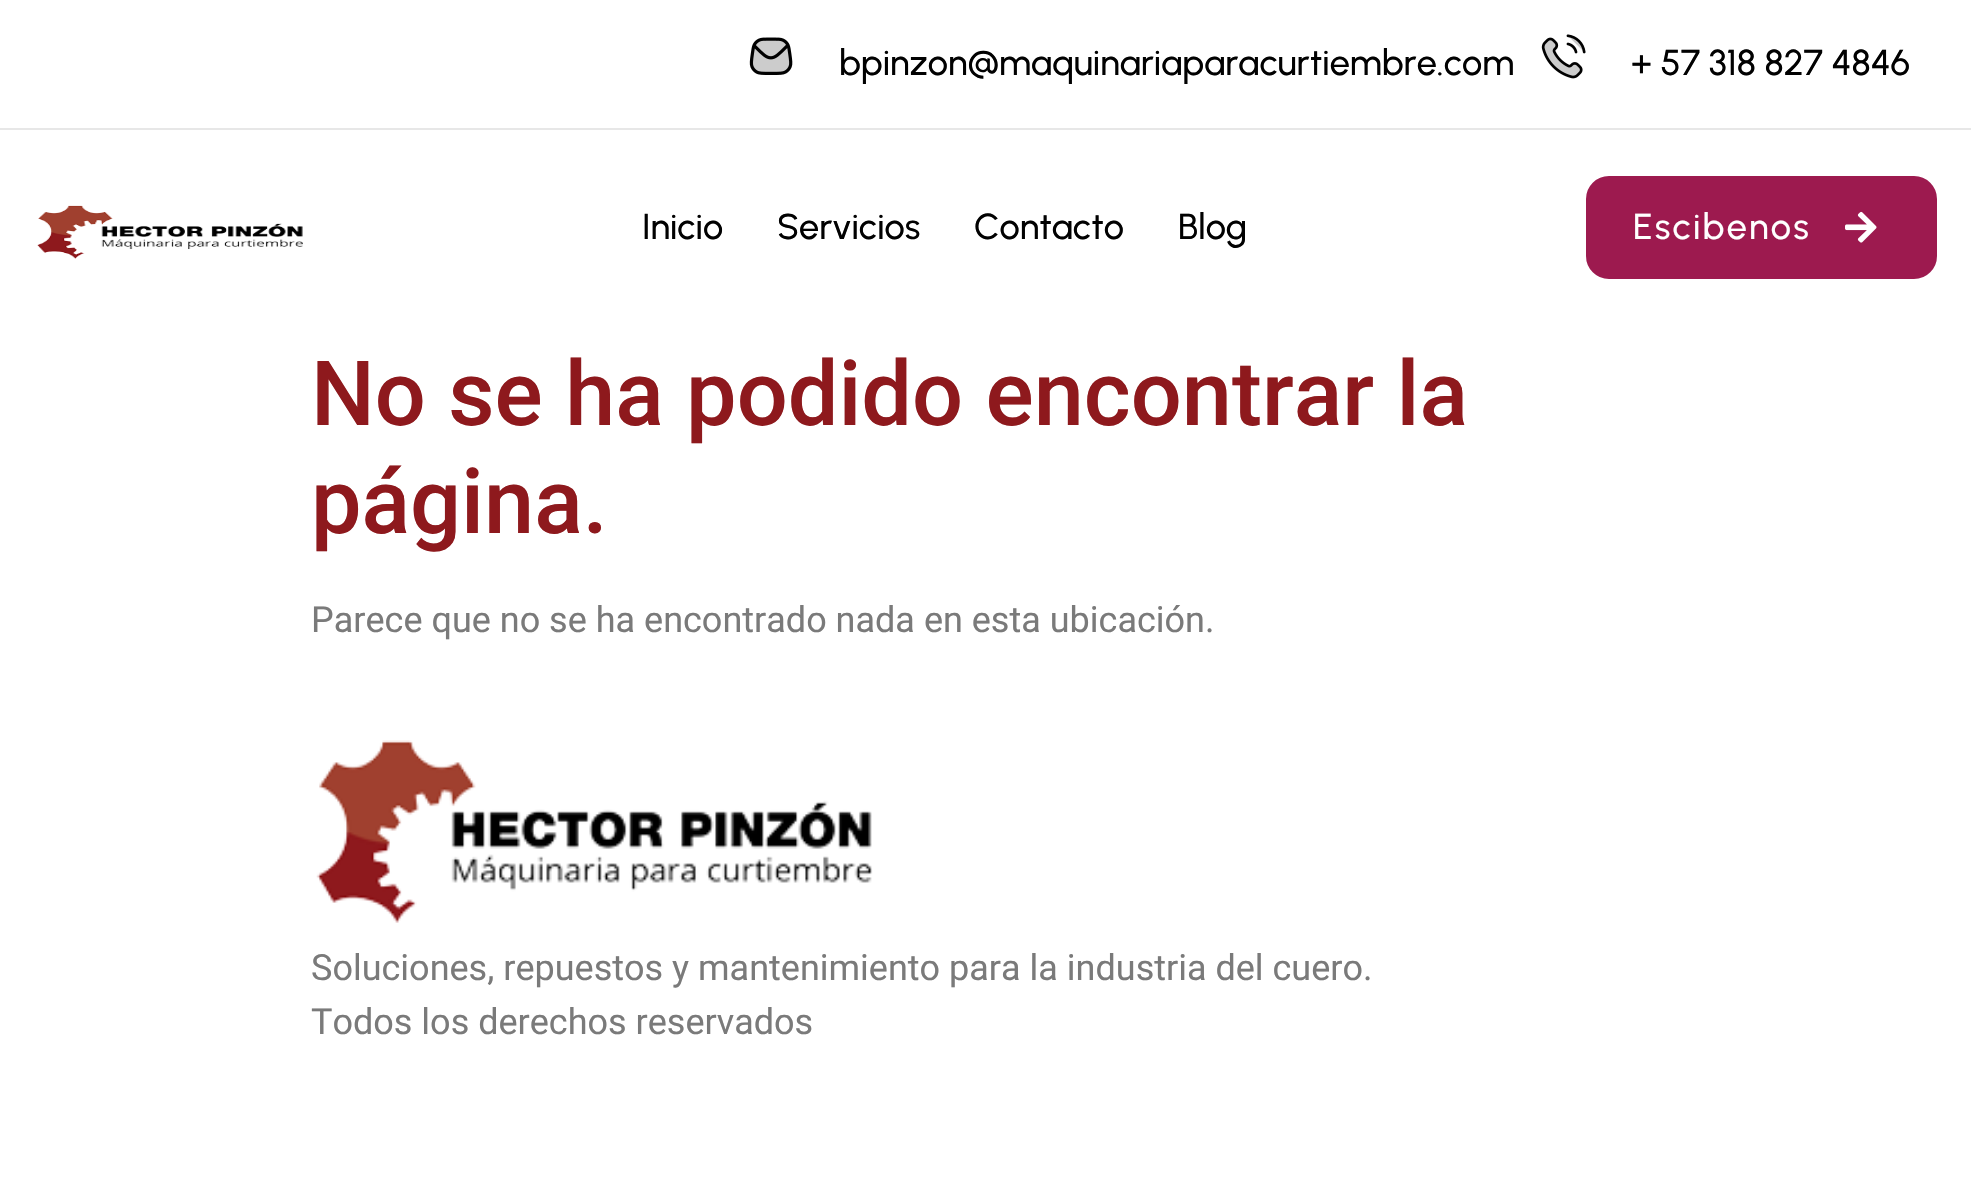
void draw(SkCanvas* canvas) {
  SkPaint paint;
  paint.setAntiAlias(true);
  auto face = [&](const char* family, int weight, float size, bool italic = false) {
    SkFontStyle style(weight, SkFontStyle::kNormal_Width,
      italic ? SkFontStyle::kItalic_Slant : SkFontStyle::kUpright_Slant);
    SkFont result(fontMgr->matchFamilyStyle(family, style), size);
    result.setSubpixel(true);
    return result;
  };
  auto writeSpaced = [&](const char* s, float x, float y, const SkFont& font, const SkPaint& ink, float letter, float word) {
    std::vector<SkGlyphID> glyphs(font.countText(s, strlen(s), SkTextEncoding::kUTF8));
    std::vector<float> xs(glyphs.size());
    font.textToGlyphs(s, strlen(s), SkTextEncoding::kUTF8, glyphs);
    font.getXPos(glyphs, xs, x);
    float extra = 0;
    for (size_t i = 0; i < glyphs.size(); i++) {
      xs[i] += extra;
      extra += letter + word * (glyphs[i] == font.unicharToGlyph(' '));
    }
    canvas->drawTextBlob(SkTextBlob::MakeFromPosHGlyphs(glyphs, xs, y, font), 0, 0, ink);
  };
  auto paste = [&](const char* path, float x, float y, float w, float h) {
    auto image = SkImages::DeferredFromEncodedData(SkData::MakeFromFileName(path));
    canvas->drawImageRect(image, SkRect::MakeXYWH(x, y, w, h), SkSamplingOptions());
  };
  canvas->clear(0xffffffff);
  paint.setColor(0xffe7e7e7);
  canvas->drawRect(SkRect::MakeXYWH(0, 128, 1971, 2), paint);
  paste("img/1.png", 749, 37, 44, 38);
  paste("img/2.png", 1541, 34, 45, 45);
  paste("img/3.png", 37, 205, 266, 54);
  paint.setColor(0xff9d1a4f);
  canvas->drawRoundRect(SkRect::MakeXYWH(1587, 177, 349, 101), 22, 22, paint);
  paint.setStroke(true);
  paint.setStrokeWidth(2);
  canvas->drawRoundRect(SkRect::MakeXYWH(1587, 177, 349, 101), 22, 22, paint);
  paste("img/4.png", 1845, 211, 32, 32);
  paste("img/5.png", 316, 740, 557, 183);
  auto f0 = face("Urbanist", 500, 36);
  paint.setStroke(false);
  paint.setColor(0xff010101);
  {
    const struct { const char* s; float x, y; } items[] = {
      {"bpinzon@maquinariaparacurtiembre.com", 839, 75},
      {"+ 57 318 827 4846", 1631, 75},
      {"Inicio", 642, 239},
      {"Servicios", 777, 239},
      {"Contacto", 974, 239},
      {"Blog", 1178, 239},
    };
    for (auto [s, x, y] : items) {
      canvas->drawString(s, x, y, f0, paint);
    }
  }
  paint.setColor(0xffffffff);
  writeSpaced("Escibenos", 1633, 239, f0, paint, 2.25f, 0);
  auto f1 = face("Roboto", 500, 90);
  paint.setColor(0xff8e191d);
  canvas->drawString("No se ha podido encontrar la", 311, 425, f1, paint);
  canvas->drawString("página.", 311, 533, f1, paint);
  auto f2 = face("Roboto", 400, 36);
  paint.setColor(0xff7a7a7a);
  {
    const struct { const char* s; float x, y; } items[] = {
      {"Parece que no se ha encontrado nada en esta ubicación.", 311, 632},
      {"Soluciones, repuestos y mantenimiento para la industria del cuero.", 311, 980},
      {"Todos los derechos reservados", 311, 1034},
    };
    for (auto [s, x, y] : items) {
      canvas->drawString(s, x, y, f2, paint);
    }
  }
}
